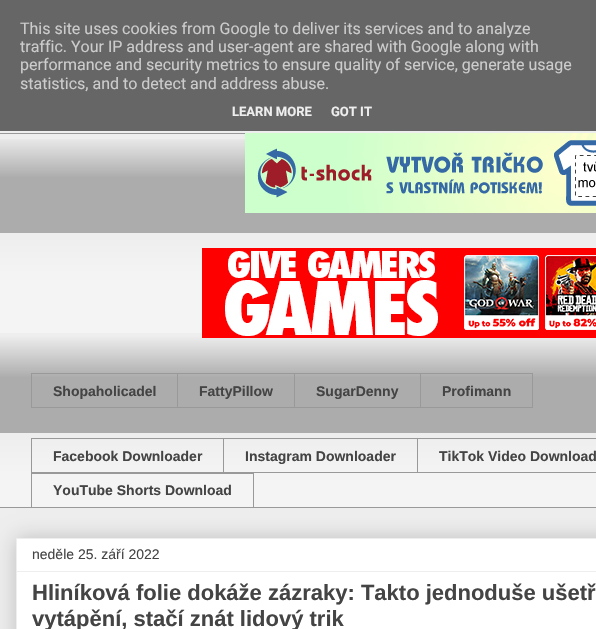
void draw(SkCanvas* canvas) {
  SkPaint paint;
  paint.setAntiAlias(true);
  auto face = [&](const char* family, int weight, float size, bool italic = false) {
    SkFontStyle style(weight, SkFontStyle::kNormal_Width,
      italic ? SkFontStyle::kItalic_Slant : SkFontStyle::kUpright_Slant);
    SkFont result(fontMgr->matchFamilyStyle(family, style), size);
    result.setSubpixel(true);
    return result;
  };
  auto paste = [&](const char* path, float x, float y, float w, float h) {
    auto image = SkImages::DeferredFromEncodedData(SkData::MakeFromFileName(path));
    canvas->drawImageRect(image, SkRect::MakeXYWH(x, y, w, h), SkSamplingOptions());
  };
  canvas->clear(0xffeeeeee);
  paint.setColor(0xff666666);
  canvas->drawRect(SkRect::MakeXYWH(0, 0, 596, 131), paint);
  paste("img/1.png", 0, 139, 596, 368);
  paint.setColor(0xff999999);
  canvas->drawRect(SkRect::MakeXYWH(0, 133, 245, 1), paint);
  paste("img/2.png", 245, 133, 351, 80);
  paste("img/3.png", 202, 248, 394, 90);
  {
    const struct { float x, y, w, h; SkColor color; } items[] = {
      {31, 373, 389, 1, 0xff999999},
      {31, 407, 389, 1, 0xff999999},
      {31, 373, 1, 35, 0xff999999},
      {177, 373, 1, 35, 0xff999999},
      {294, 373, 1, 35, 0xff999999},
    };
    for (auto [x, y, w, h, color] : items) {
      paint.setColor(color);
      canvas->drawRect(SkRect::MakeXYWH(x, y, w, h), paint);
    }
  }
  paint.setStroke(true);
  paint.setStrokeWidth(1);
  canvas->drawRect(SkRect::MakeXYWH(420.5f, 373.5f, 112, 34), paint);
  paint.setStroke(false);
  {
    const struct { float x, y, w, h; SkColor color; } items[] = {
      {31, 438, 565, 1, 0xff999999},
      {31, 472, 565, 1, 0xff999999},
      {31, 438, 1, 35, 0xff999999},
      {223, 438, 1, 35, 0xff999999},
      {417, 438, 1, 35, 0xff999999},
    };
    for (auto [x, y, w, h, color] : items) {
      paint.setColor(color);
      canvas->drawRect(SkRect::MakeXYWH(x, y, w, h), paint);
    }
  }
  paint.setStroke(true);
  canvas->drawRect(SkRect::MakeXYWH(31.5f, 473.5f, 222, 34), paint);
  paint.setStroke(false);
  canvas->drawRect(SkRect::MakeXYWH(0, 507, 596, 1), paint);
  paint.setColor(0x33000000);
  paint.setMaskFilter(SkMaskFilter::MakeBlur(kNormal_SkBlurStyle, 10));
  canvas->drawRect(SkRect::MakeXYWH(16, 538, 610, 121), paint);
  paint.setMaskFilter(nullptr);
  paint.setColor(0xffffffff);
  canvas->drawRect(SkRect::MakeXYWH(16.5f, 538.5f, 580, 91), paint);
  paint.setStroke(true);
  paint.setColor(0xffeeeeee);
  canvas->drawRect(SkRect::MakeXYWH(16.5f, 538.5f, 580, 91), paint);
  paint.setStroke(false);
  canvas->drawRect(SkRect::MakeXYWH(17, 571, 579, 1), paint);
  auto f0 = face("Roboto", 400, 16);
  paint.setColor(0xffcccccc);
  {
    const struct { const char* s; float x, y; } items[] = {
      {"This site uses cookies from Google to deliver its services and to analyze", 20, 34},
      {"traffic. Your IP address and user-agent are shared with Google along with", 20, 52},
      {"performance and security metrics to ensure quality of service, generate usage", 20, 70},
      {"statistics, and to detect and address abuse.", 20, 89},
    };
    for (auto [s, x, y] : items) {
      canvas->drawString(s, x, y, f0, paint);
    }
  }
  auto f1 = face("Roboto", 700, 13);
  paint.setColor(0xffeeeeee);
  canvas->drawString("LEARN MORE", 232, 116, f1, paint);
  canvas->drawString("GOT IT", 331, 116, f1, paint);
  auto f2 = face("Liberation Sans", 700, 14);
  paint.setColor(0xff444444);
  {
    const struct { const char* s; float x, y; } items[] = {
      {"Shopaholicadel", 53, 396},
      {"FattyPillow", 199, 396},
      {"SugarDenny", 316, 396},
      {"Profimann", 442, 396},
      {"Facebook Downloader", 53, 461},
      {"Instagram Downloader", 245, 461},
      {"TikTok Video Download", 439, 461},
      {"YouTube Shorts Download", 53, 495},
    };
    for (auto [s, x, y] : items) {
      canvas->drawString(s, x, y, f2, paint);
    }
  }
  auto f3 = face("Liberation Sans", 400, 14);
  canvas->drawString("neděle 25. září 2022", 32, 559, f3, paint);
  auto f4 = face("Liberation Sans", 700, 22);
  canvas->drawString("Hliníková folie dokáže zázraky: Takto jednoduše ušetř", 32, 600, f4, paint);
  canvas->drawString("vytápění, stačí znát lidový trik", 32, 626, f4, paint);
}
